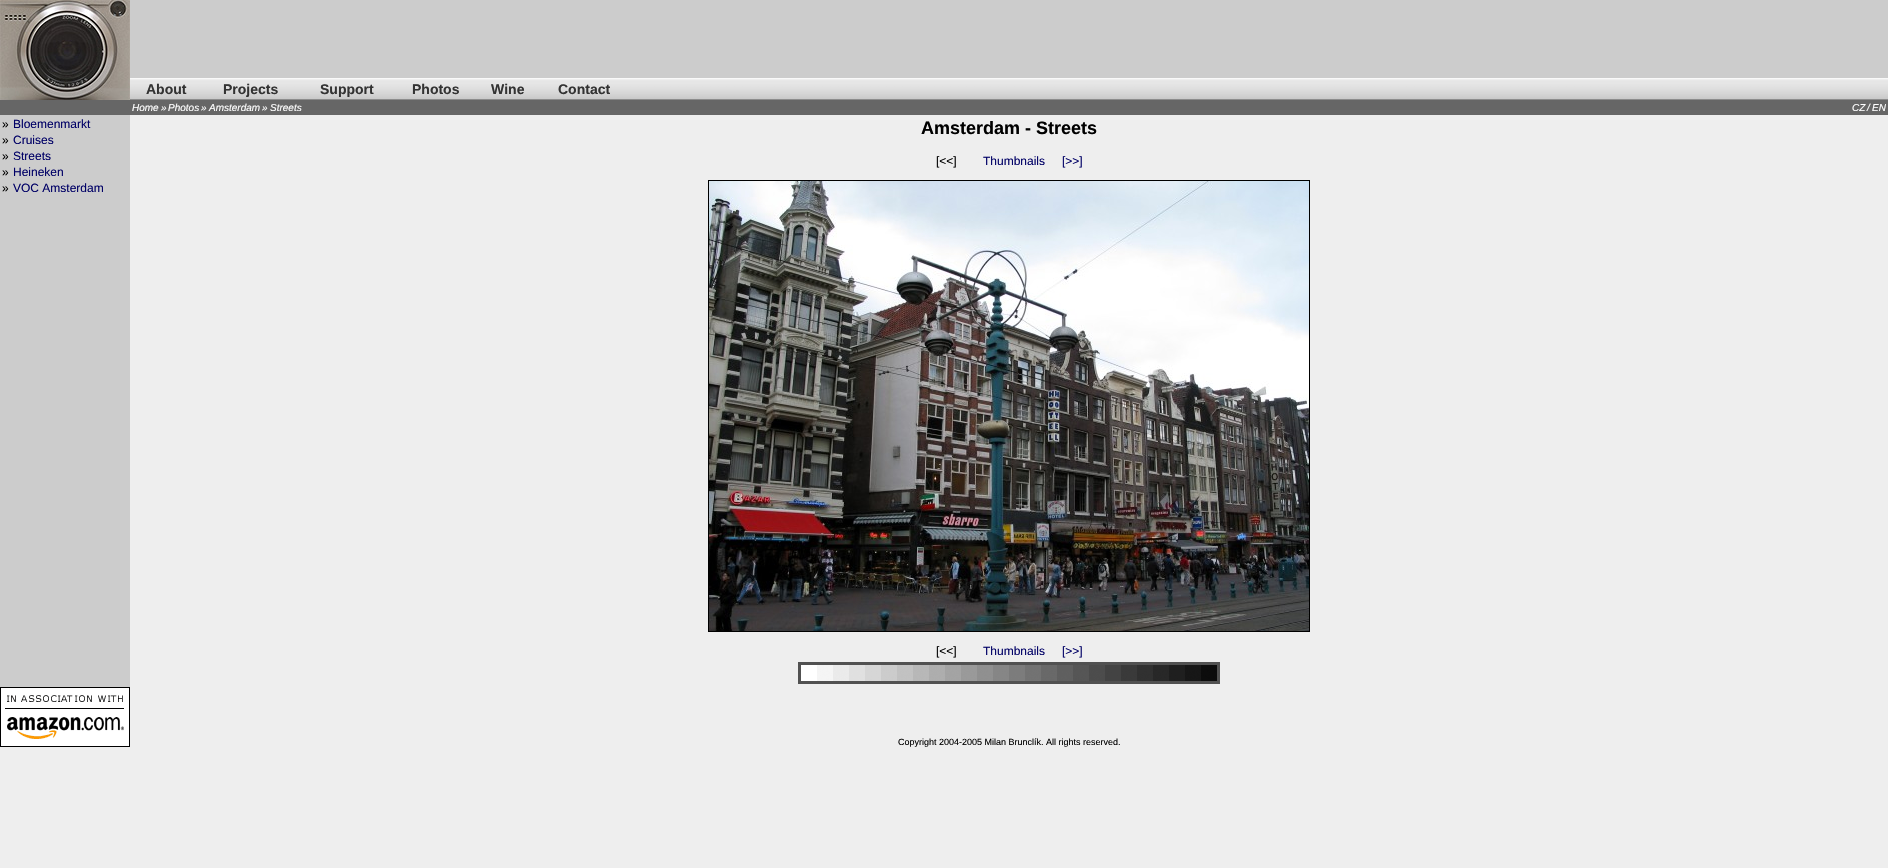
void draw(SkCanvas* canvas) {
  SkPaint paint;
  paint.setAntiAlias(true);
  auto face = [&](const char* family, int weight, float size, bool italic = false) {
    SkFontStyle style(weight, SkFontStyle::kNormal_Width,
      italic ? SkFontStyle::kItalic_Slant : SkFontStyle::kUpright_Slant);
    SkFont result(fontMgr->matchFamilyStyle(family, style), size);
    result.setSubpixel(true);
    return result;
  };
  auto paste = [&](const char* path, float x, float y, float w, float h) {
    auto image = SkImages::DeferredFromEncodedData(SkData::MakeFromFileName(path));
    canvas->drawImageRect(image, SkRect::MakeXYWH(x, y, w, h), SkSamplingOptions());
  };
  canvas->clear(0xffeeeeee);
  paste("img/1.png", 0, 0, 130, 100);
  paint.setColor(0xffcccccc);
  canvas->drawRect(SkRect::MakeXYWH(130, 0, 1758, 78), paint);
  paste("img/2.png", 130, 78, 1758, 22);
  paint.setColor(0xff666666);
  canvas->drawRect(SkRect::MakeXYWH(0, 100, 1888, 15), paint);
  paint.setColor(0xffcccccc);
  canvas->drawRect(SkRect::MakeXYWH(0, 115, 130, 572), paint);
  paint.setStroke(true);
  paint.setStrokeWidth(1);
  paint.setColor(0xff000000);
  canvas->drawRect(SkRect::MakeXYWH(708.5f, 180.5f, 601, 451), paint);
  paste("img/3.png", 709, 181, 600, 450);
  paste("img/4.png", 798, 662, 422, 22);
  paste("img/5.png", 0, 687, 130, 60);
  auto f0 = face("Liberation Sans", 700, 14);
  paint.setStroke(false);
  paint.setColor(0xff333333);
  {
    const struct { const char* s; float x, y; } items[] = {
      {"About", 146, 94},
      {"Projects", 223, 94},
      {"Support", 320, 94},
      {"Photos", 412, 94},
      {"Wine", 491, 94},
      {"Contact", 558, 94},
    };
    for (auto [s, x, y] : items) {
      canvas->drawString(s, x, y, f0, paint);
    }
  }
  auto f1 = face("Liberation Sans", 400, 10, true);
  paint.setColor(0xffffffff);
  {
    const struct { const char* s; float x, y; } items[] = {
      {"Home", 132, 111},
      {"»", 161, 111},
      {"Photos", 168, 111},
      {"»", 201, 111},
      {"Amsterdam", 209, 111},
      {"»", 262, 111},
      {"Streets", 270, 111},
      {"CZ", 1852, 111},
      {"/", 1867, 111},
      {"EN", 1872, 111},
    };
    for (auto [s, x, y] : items) {
      canvas->drawString(s, x, y, f1, paint);
    }
  }
  auto f2 = face("Liberation Sans", 400, 12);
  paint.setColor(0xff000000);
  canvas->drawString("»", 2, 128, f2, paint);
  paint.setColor(0xff000066);
  canvas->drawString("Bloemenmarkt", 13, 128, f2, paint);
  paint.setColor(0xff000000);
  canvas->drawString("»", 2, 144, f2, paint);
  paint.setColor(0xff000066);
  canvas->drawString("Cruises", 13, 144, f2, paint);
  paint.setColor(0xff000000);
  canvas->drawString("»", 2, 160, f2, paint);
  paint.setColor(0xff000066);
  canvas->drawString("Streets", 13, 160, f2, paint);
  paint.setColor(0xff000000);
  canvas->drawString("»", 2, 176, f2, paint);
  paint.setColor(0xff000066);
  canvas->drawString("Heineken", 13, 176, f2, paint);
  paint.setColor(0xff000000);
  canvas->drawString("»", 2, 192, f2, paint);
  paint.setColor(0xff000066);
  canvas->drawString("VOC Amsterdam", 13, 192, f2, paint);
  auto f3 = face("Liberation Sans", 700, 18);
  paint.setColor(0xff000000);
  canvas->drawString("Amsterdam - Streets", 921, 134, f3, paint);
  canvas->drawString("[<<]", 936, 165, f2, paint);
  paint.setColor(0xff000066);
  canvas->drawString("Thumbnails", 983, 165, f2, paint);
  canvas->drawString("[>>]", 1062, 165, f2, paint);
  paint.setColor(0xff000000);
  canvas->drawString("[<<]", 936, 655, f2, paint);
  paint.setColor(0xff000066);
  canvas->drawString("Thumbnails", 983, 655, f2, paint);
  canvas->drawString("[>>]", 1062, 655, f2, paint);
  auto f4 = face("Liberation Sans", 400, 9);
  paint.setColor(0xff000000);
  canvas->drawString("Copyright 2004-2005 Milan Brunclík. All rights reserved.", 898, 745, f4, paint);
}
